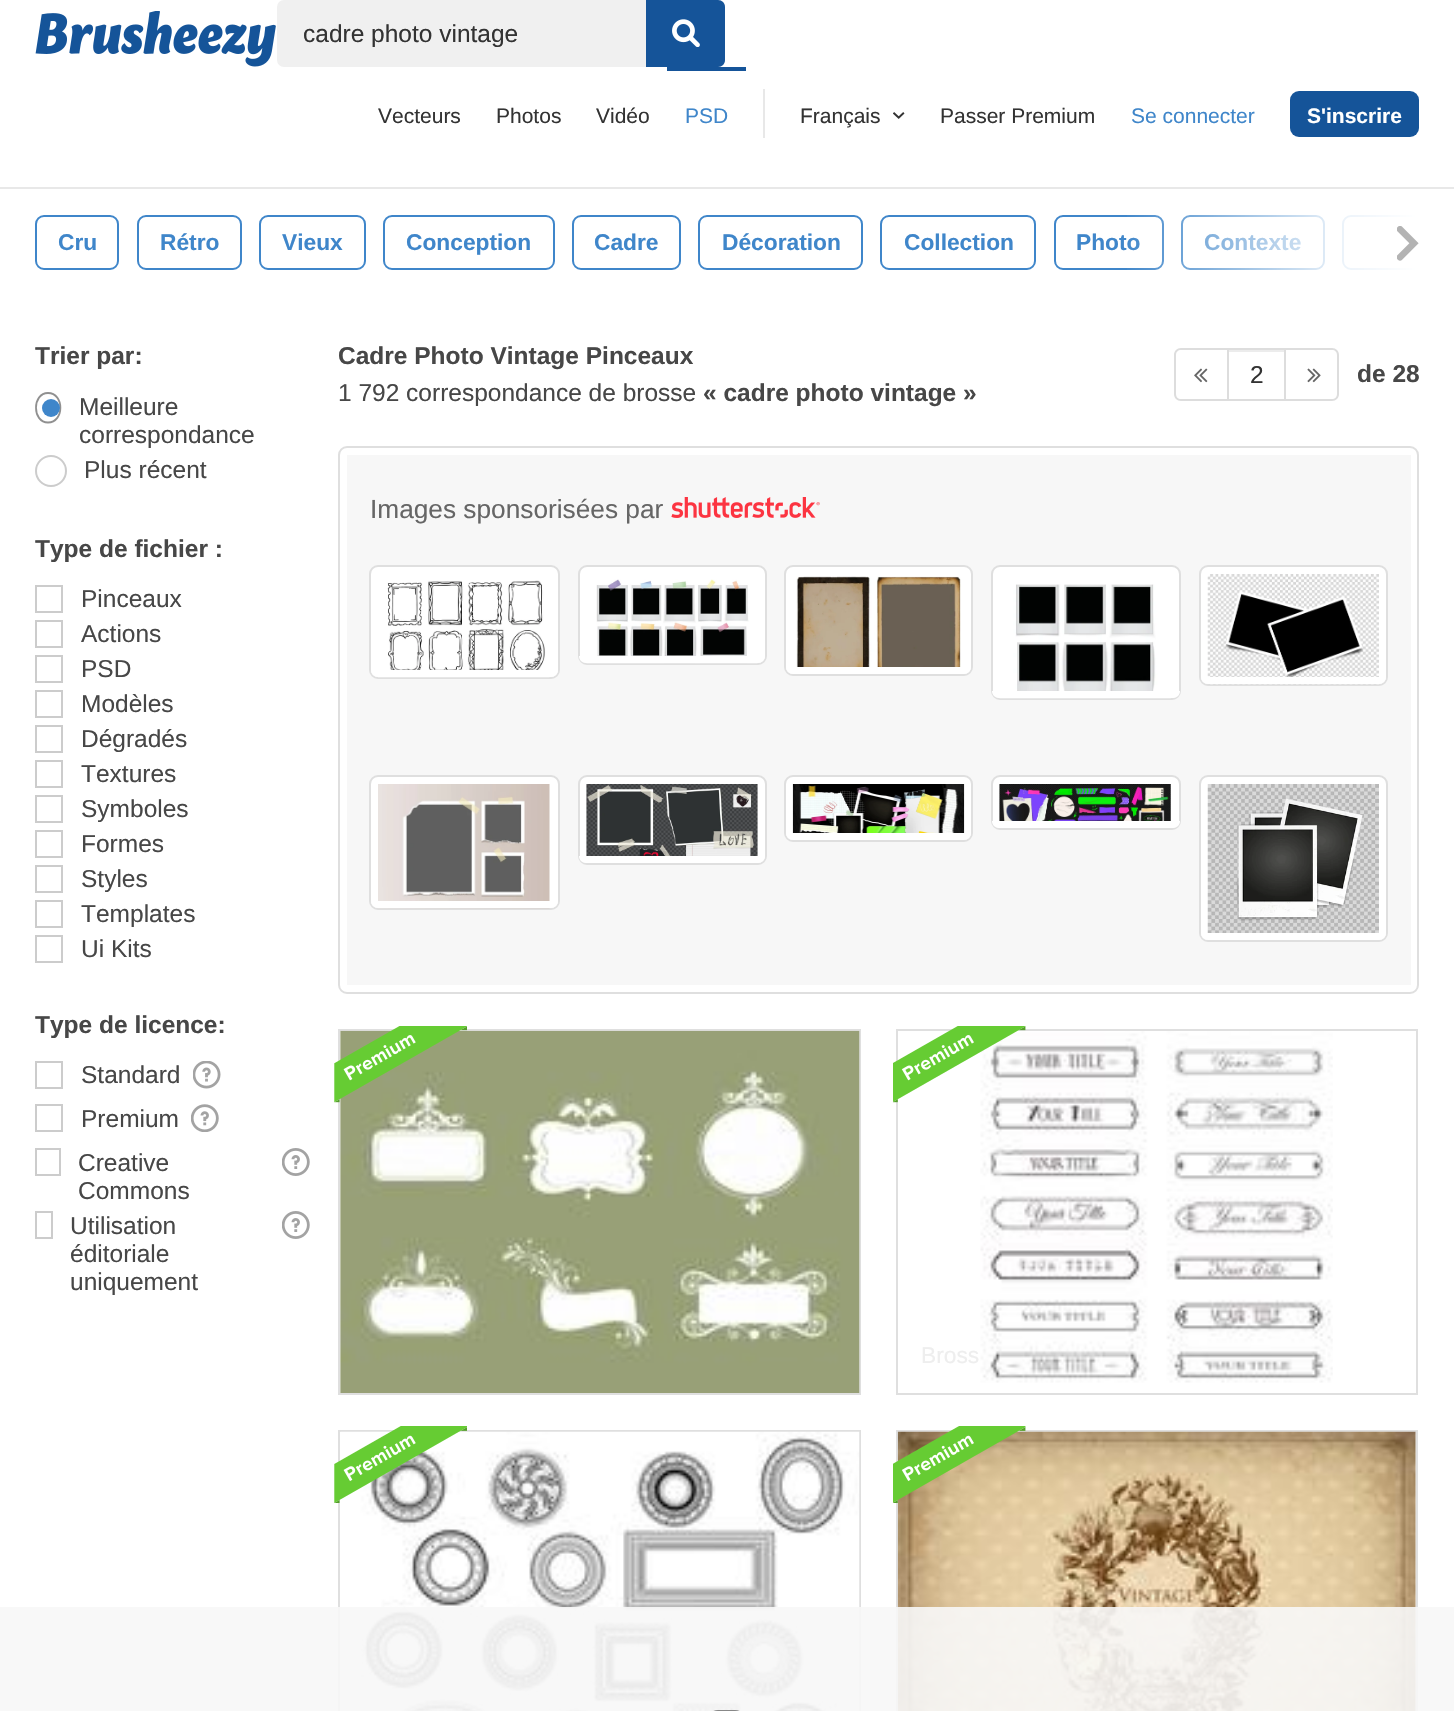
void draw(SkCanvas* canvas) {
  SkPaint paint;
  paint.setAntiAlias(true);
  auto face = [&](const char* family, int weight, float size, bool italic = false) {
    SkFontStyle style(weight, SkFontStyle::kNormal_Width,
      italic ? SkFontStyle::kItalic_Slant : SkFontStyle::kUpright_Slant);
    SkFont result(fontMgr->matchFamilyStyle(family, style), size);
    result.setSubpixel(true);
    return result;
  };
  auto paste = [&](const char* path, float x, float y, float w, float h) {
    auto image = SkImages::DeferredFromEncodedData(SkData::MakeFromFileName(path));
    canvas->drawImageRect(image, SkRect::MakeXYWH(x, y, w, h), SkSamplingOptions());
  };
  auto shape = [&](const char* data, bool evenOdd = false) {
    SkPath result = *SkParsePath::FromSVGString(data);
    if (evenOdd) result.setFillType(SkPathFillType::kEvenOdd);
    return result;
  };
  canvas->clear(0xffffffff);
  paint.setColor(0xffe8e8e8);
  canvas->drawRect(SkRect::MakeXYWH(0, 187, 1454, 2), paint);
  paste("img/1.png", 35, 11, 241, 56);
  paint.setColor(0xfff0f0f0);
  canvas->drawRoundRect(SkRect::MakeXYWH(277, 0, 448, 67), 7, 7, paint);
  paint.setColor(0xff155499);
  canvas->drawPath(shape("M646 0H718C722 0 725 3 725 7V60C725 64 722 67 718 67H646Z"), paint);
  paste("img/2.png", 672, 19, 28, 28);
  canvas->drawRect(SkRect::MakeXYWH(667, 67, 79, 4), paint);
  paint.setColor(0xffe8e8e8);
  canvas->drawRect(SkRect::MakeXYWH(763, 89, 2, 49), paint);
  paste("img/3.png", 893, 112, 12, 7);
  paint.setColor(0xff155499);
  canvas->drawRoundRect(SkRect::MakeXYWH(1290, 91, 129, 46), 9, 9, paint);
  paint.setStroke(true);
  paint.setStrokeWidth(2);
  paint.setColor(0xff3f86ca);
  canvas->drawRoundRect(SkRect::MakeXYWH(36, 216, 82, 53), 8, 8, paint);
  canvas->drawRoundRect(SkRect::MakeXYWH(138, 216, 103, 53), 8, 8, paint);
  canvas->drawRoundRect(SkRect::MakeXYWH(260, 216, 105, 53), 8, 8, paint);
  canvas->drawRoundRect(SkRect::MakeXYWH(384, 216, 170, 53), 8, 8, paint);
  canvas->drawRoundRect(SkRect::MakeXYWH(573, 216, 107, 53), 8, 8, paint);
  canvas->drawRoundRect(SkRect::MakeXYWH(699, 216, 163, 53), 8, 8, paint);
  canvas->drawRoundRect(SkRect::MakeXYWH(881, 216, 154, 53), 8, 8, paint);
  canvas->drawRoundRect(SkRect::MakeXYWH(1055, 216, 108, 53), 8, 8, paint);
  canvas->drawRoundRect(SkRect::MakeXYWH(1182, 216, 142, 53), 8, 8, paint);
  canvas->save();
  canvas->clipRect(SkRect::MakeXYWH(35, 215, 1384, 77));
  canvas->drawRoundRect(SkRect::MakeXYWH(1343, 216, 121, 53), 8, 8, paint);
  canvas->restore();
  paint.setStrokeWidth(1.8f);
  paint.setColor(0xff909090);
  canvas->drawPath(shape("M48 393C64.5 393 64.5 422.5 48 422.5C32 422.5 32 393 48 393Z"), paint);
  paint.setStroke(false);
  paint.setColor(0xff3f86ca);
  canvas->drawCircle(51, 408, 9, paint);
  paint.setStroke(true);
  paint.setStrokeWidth(2);
  paint.setColor(0xffcccccc);
  canvas->drawCircle(51, 471, 15, paint);
  canvas->drawRect(SkRect::MakeXYWH(36, 586, 26, 26), paint);
  canvas->drawRect(SkRect::MakeXYWH(36, 621, 26, 26), paint);
  canvas->drawRect(SkRect::MakeXYWH(36, 656, 26, 26), paint);
  canvas->drawRect(SkRect::MakeXYWH(36, 691, 26, 26), paint);
  canvas->drawRect(SkRect::MakeXYWH(36, 726, 26, 26), paint);
  canvas->drawRect(SkRect::MakeXYWH(36, 761, 26, 26), paint);
  canvas->drawRect(SkRect::MakeXYWH(36, 796, 26, 26), paint);
  canvas->drawRect(SkRect::MakeXYWH(36, 831, 26, 26), paint);
  canvas->drawRect(SkRect::MakeXYWH(36, 866, 26, 26), paint);
  canvas->drawRect(SkRect::MakeXYWH(36, 901, 26, 26), paint);
  canvas->drawRect(SkRect::MakeXYWH(36, 936, 26, 26), paint);
  canvas->drawRect(SkRect::MakeXYWH(36, 1062, 26, 26), paint);
  paste("img/5.png", 193, 1061, 28, 28);
  canvas->drawRect(SkRect::MakeXYWH(36, 1105, 26, 26), paint);
  paste("img/6.png", 191, 1104, 28, 28);
  canvas->drawRect(SkRect::MakeXYWH(36, 1149, 24, 26), paint);
  paste("img/7.png", 282, 1148, 28, 28);
  canvas->drawRect(SkRect::MakeXYWH(36, 1212, 16, 26), paint);
  paste("img/7.png", 282, 1211, 28, 28);
  paint.setStroke(false);
  paint.setColor(0xffdddddd);
  canvas->drawPath(shape("M1181 348H1227V401H1181C1177 401 1174 398 1174 394V355C1174 351 1177 348 1181 348ZM1181 350H1227V399H1181C1178 399 1176 397 1176 394V355C1176 352 1178 350 1181 350Z", true), paint);
  paste("img/8.png", 1194, 368, 14, 15);
  paint.setColor(0xffececec);
  canvas->drawRect(SkRect::MakeXYWH(1229, 350, 56, 2), paint);
  paint.setStroke(true);
  paint.setColor(0xffdddddd);
  canvas->drawRect(SkRect::MakeXYWH(1228, 349, 57, 51), paint);
  paint.setStroke(false);
  canvas->drawPath(shape("M1286 348H1332C1336 348 1339 351 1339 355V394C1339 398 1336 401 1332 401H1286ZM1286 350H1332C1335 350 1337 352 1337 355V394C1337 397 1335 399 1332 399H1286Z", true), paint);
  paste("img/9.png", 1307, 368, 14, 15);
  paint.setStroke(true);
  paint.setColor(0xffdfdfdf);
  canvas->drawRoundRect(SkRect::MakeXYWH(339, 447, 1079, 546), 8, 8, paint);
  paint.setStroke(false);
  paint.setColor(0xfff7f7f7);
  canvas->drawRect(SkRect::MakeXYWH(347, 455, 1064, 530), paint);
  paste("img/10.png", 671, 497, 149, 21);
  paint.setColor(0xffffffff);
  canvas->drawRoundRect(SkRect::MakeXYWH(370, 566, 189, 112), 8, 8, paint);
  paint.setStroke(true);
  paint.setColor(0xffdfdfdf);
  canvas->drawRoundRect(SkRect::MakeXYWH(370, 566, 189, 112), 8, 8, paint);
  paste("img/11.png", 378, 580, 172, 98);
  paint.setStroke(false);
  paint.setColor(0xffffffff);
  canvas->drawPath(shape("M371 670H558C558 674 555 677 551 677H378C374 677 371 674 371 670Z"), paint);
  canvas->drawRoundRect(SkRect::MakeXYWH(579, 566, 187, 98), 8, 8, paint);
  paint.setStroke(true);
  paint.setColor(0xffdfdfdf);
  canvas->drawRoundRect(SkRect::MakeXYWH(579, 566, 187, 98), 8, 8, paint);
  paste("img/12.png", 586, 579, 172, 85);
  paint.setStroke(false);
  paint.setColor(0xffffffff);
  canvas->drawPath(shape("M579 656H765C765 660 762 663 758 663H586C582 663 579 660 579 656Z"), paint);
  canvas->drawRoundRect(SkRect::MakeXYWH(785, 566, 187, 109), 8, 8, paint);
  paint.setStroke(true);
  paint.setColor(0xffdfdfdf);
  canvas->drawRoundRect(SkRect::MakeXYWH(785, 566, 187, 109), 8, 8, paint);
  paste("img/13.png", 796, 576, 165, 91);
  paint.setStroke(false);
  paint.setColor(0xffffffff);
  canvas->drawPath(shape("M786 667H971C971 671 968 674 964 674H793C789 674 786 671 786 667Z"), paint);
  canvas->drawRoundRect(SkRect::MakeXYWH(992, 566, 188, 133), 8, 8, paint);
  paint.setStroke(true);
  paint.setColor(0xffdfdfdf);
  canvas->drawRoundRect(SkRect::MakeXYWH(992, 566, 188, 133), 8, 8, paint);
  paste("img/14.png", 999, 584, 172, 115);
  paint.setStroke(false);
  paint.setColor(0xffffffff);
  canvas->drawPath(shape("M992 691H1180C1180 695 1177 698 1173 698H999C995 698 992 695 992 691Z"), paint);
  canvas->drawRoundRect(SkRect::MakeXYWH(1200, 566, 187, 119), 8, 8, paint);
  paint.setStroke(true);
  paint.setColor(0xffdfdfdf);
  canvas->drawRoundRect(SkRect::MakeXYWH(1200, 566, 187, 119), 8, 8, paint);
  paste("img/15.png", 1207, 574, 172, 111);
  paint.setStroke(false);
  paint.setColor(0xffffffff);
  canvas->drawPath(shape("M1201 677H1386C1386 681 1383 684 1379 684H1208C1204 684 1201 681 1201 677Z"), paint);
  canvas->drawRoundRect(SkRect::MakeXYWH(370, 776, 189, 133), 8, 8, paint);
  paint.setStroke(true);
  paint.setColor(0xffdfdfdf);
  canvas->drawRoundRect(SkRect::MakeXYWH(370, 776, 189, 133), 8, 8, paint);
  paste("img/16.png", 378, 784, 172, 125);
  paint.setStroke(false);
  paint.setColor(0xffffffff);
  canvas->drawPath(shape("M371 901H558C558 905 555 908 551 908H378C374 908 371 905 371 901Z"), paint);
  canvas->drawRoundRect(SkRect::MakeXYWH(579, 776, 187, 88), 8, 8, paint);
  paint.setStroke(true);
  paint.setColor(0xffdfdfdf);
  canvas->drawRoundRect(SkRect::MakeXYWH(579, 776, 187, 88), 8, 8, paint);
  paste("img/17.png", 586, 784, 172, 72);
  paint.setStroke(false);
  paint.setColor(0xffffffff);
  canvas->drawPath(shape("M579 856H765C765 860 762 863 758 863H586C582 863 579 860 579 856Z"), paint);
  canvas->drawRoundRect(SkRect::MakeXYWH(785, 776, 187, 65), 8, 8, paint);
  paint.setStroke(true);
  paint.setColor(0xffdfdfdf);
  canvas->drawRoundRect(SkRect::MakeXYWH(785, 776, 187, 65), 8, 8, paint);
  paste("img/18.png", 792, 784, 173, 56);
  paint.setStroke(false);
  paint.setColor(0xffffffff);
  canvas->drawPath(shape("M786 833H971C971 837 968 840 964 840H793C789 840 786 837 786 833Z"), paint);
  canvas->drawRoundRect(SkRect::MakeXYWH(992, 776, 188, 53), 8, 8, paint);
  paint.setStroke(true);
  paint.setColor(0xffdfdfdf);
  canvas->drawRoundRect(SkRect::MakeXYWH(992, 776, 188, 53), 8, 8, paint);
  paste("img/19.png", 999, 784, 172, 37);
  paint.setStroke(false);
  paint.setColor(0xffffffff);
  canvas->drawPath(shape("M992 821H1180C1180 825 1177 828 1173 828H999C995 828 992 825 992 821Z"), paint);
  canvas->drawRoundRect(SkRect::MakeXYWH(1200, 776, 187, 165), 8, 8, paint);
  paint.setStroke(true);
  paint.setColor(0xffdfdfdf);
  canvas->drawRoundRect(SkRect::MakeXYWH(1200, 776, 187, 165), 8, 8, paint);
  paste("img/20.png", 1207, 784, 172, 156);
  paint.setStroke(false);
  paint.setColor(0xffffffff);
  canvas->drawPath(shape("M1201 933H1386C1386 937 1383 940 1379 940H1208C1204 940 1201 937 1201 933Z"), paint);
  paint.setStroke(true);
  paint.setColor(0xffdfdfdf);
  canvas->drawRect(SkRect::MakeXYWH(339, 1030, 521, 364), paint);
  paste("img/22.png", 340, 1030, 520, 363);
  paste("img/21.png", 334, 1026, 133, 77);
  canvas->drawRect(SkRect::MakeXYWH(897, 1030, 520, 364), paint);
  paste("img/24.png", 980, 1031, 353, 352);
  paste("img/23.png", 893, 1026, 133, 77);
  canvas->drawRect(SkRect::MakeXYWH(339, 1431, 521, 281), paint);
  paste("img/26.png", 340, 1431, 520, 280);
  paste("img/25.png", 334, 1426, 133, 77);
  canvas->drawRect(SkRect::MakeXYWH(897, 1431, 520, 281), paint);
  paste("img/28.png", 897, 1431, 519, 280);
  paste("img/27.png", 893, 1426, 133, 77);
  paint.setStroke(false);
  paint.setColor(0xe6f7f7f7);
  canvas->drawRect(SkRect::MakeXYWH(0, 1607, 1454, 104), paint);
  paint.setStroke(true);
  paint.setColor(0xbff7f7f7);
  canvas->drawRoundRect(SkRect::MakeXYWH(708, 1711, 37, 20), 18, 18, paint);
  paint.setColor(0xff888888);
  canvas->drawRoundRect(SkRect::MakeXYWH(708, 1711, 37, 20), 18, 18, paint);
  auto f0 = face("Liberation Sans", 400, 24.5f);
  paint.setStroke(false);
  paint.setColor(0xff333333);
  canvas->drawString("cadre photo vintage", 303, 42, f0, paint);
  auto f1 = face("Liberation Sans", 400, 21);
  {
    const struct { const char* s; float x, y; } items[] = {
      {"Vecteurs", 378, 123},
      {"Photos", 496, 123},
      {"Vidéo", 596, 123},
    };
    for (auto [s, x, y] : items) {
      canvas->drawString(s, x, y, f1, paint);
    }
  }
  paint.setColor(0xff3f86ca);
  canvas->drawString("PSD", 685, 123, f1, paint);
  paint.setColor(0xff333333);
  canvas->drawString("Français", 800, 123, f1, paint);
  canvas->drawString("Passer Premium", 940, 123, f1, paint);
  paint.setColor(0xff3f86ca);
  canvas->drawString("Se connecter", 1131, 123, f1, paint);
  auto f2 = face("Liberation Sans", 700, 21);
  paint.setColor(0xffffffff);
  canvas->drawString("S'inscrire", 1307, 123, f2, paint);
  auto f3 = face("Liberation Sans", 700, 22.75f);
  paint.setColor(0xff3f86ca);
  {
    const struct { const char* s; float x, y; } items[] = {
      {"Cru", 58, 250},
      {"Rétro", 160, 250},
      {"Vieux", 282, 250},
      {"Conception", 406, 250},
      {"Cadre", 594, 250},
      {"Décoration", 722, 250},
      {"Collection", 904, 250},
      {"Photo", 1076, 250},
      {"Contexte", 1204, 250},
    };
    for (auto [s, x, y] : items) {
      canvas->drawString(s, x, y, f3, paint);
    }
  }
  {
    const SkColor colors[] = {0x00ffffff, 0xe6ffffff, 0xffffffff};
    const float stops[] = {0, 0.75f, 1};
    const SkPoint ends[] = {{1122, 242}, {1419, 242}};
    paint.setShader(SkGradientShader::MakeLinear(ends, colors, stops, 3, SkTileMode::kClamp));
    paint.setAlpha(255);
  }
  canvas->drawRect(SkRect::MakeXYWH(1127, 215, 292, 55), paint);
  paste("img/4.png", 1397, 226, 22, 35);
  auto f4 = face("Liberation Sans", 700, 24.5f);
  paint.setShader(nullptr);
  paint.setColor(0xff474747);
  canvas->drawString("Trier par:", 35, 364, f4, paint);
  {
    const struct { const char* s; float x, y; } items[] = {
      {"Meilleure", 79, 415},
      {"correspondance", 79, 443},
      {"Plus récent", 84, 478},
    };
    for (auto [s, x, y] : items) {
      canvas->drawString(s, x, y, f0, paint);
    }
  }
  canvas->drawString("Type de fichier :", 35, 557, f4, paint);
  {
    const struct { const char* s; float x, y; } items[] = {
      {"Pinceaux", 81, 607},
      {"Actions", 81, 642},
      {"PSD", 81, 677},
      {"Modèles", 81, 712},
      {"Dégradés", 81, 747},
      {"Textures", 81, 782},
      {"Symboles", 81, 817},
      {"Formes", 81, 852},
      {"Styles", 81, 887},
      {"Templates", 81, 922},
      {"Ui Kits", 81, 957},
    };
    for (auto [s, x, y] : items) {
      canvas->drawString(s, x, y, f0, paint);
    }
  }
  canvas->drawString("Type de licence:", 35, 1033, f4, paint);
  {
    const struct { const char* s; float x, y; } items[] = {
      {"Standard", 81, 1083},
      {"Premium", 81, 1127},
      {"Creative", 78, 1171},
      {"Commons", 78, 1199},
      {"Utilisation", 70, 1234},
      {"éditoriale", 70, 1262},
      {"uniquement", 70, 1290},
    };
    for (auto [s, x, y] : items) {
      canvas->drawString(s, x, y, f0, paint);
    }
  }
  canvas->drawString("Cadre Photo Vintage Pinceaux", 338, 364, f4, paint);
  canvas->drawString("1 792 correspondance de brosse", 338, 401, f0, paint);
  canvas->drawString("« cadre photo vintage »", 703, 401, f4, paint);
  paint.setColor(0xff333333);
  canvas->drawString("2", 1250, 383, f0, paint);
  paint.setColor(0xff474747);
  canvas->drawString("de 28", 1357, 382, f4, paint);
  auto f5 = face("Liberation Sans", 400, 26.25f);
  paint.setColor(0xff666666);
  canvas->drawString("Images sponsorisées par", 370, 518, f5, paint);
  auto f6 = face("Liberation Sans", 400, 22.75f);
  paint.setColor(0xffeeeeee);
  canvas->drawString("Bross", 921, 1363, f6, paint);
}
